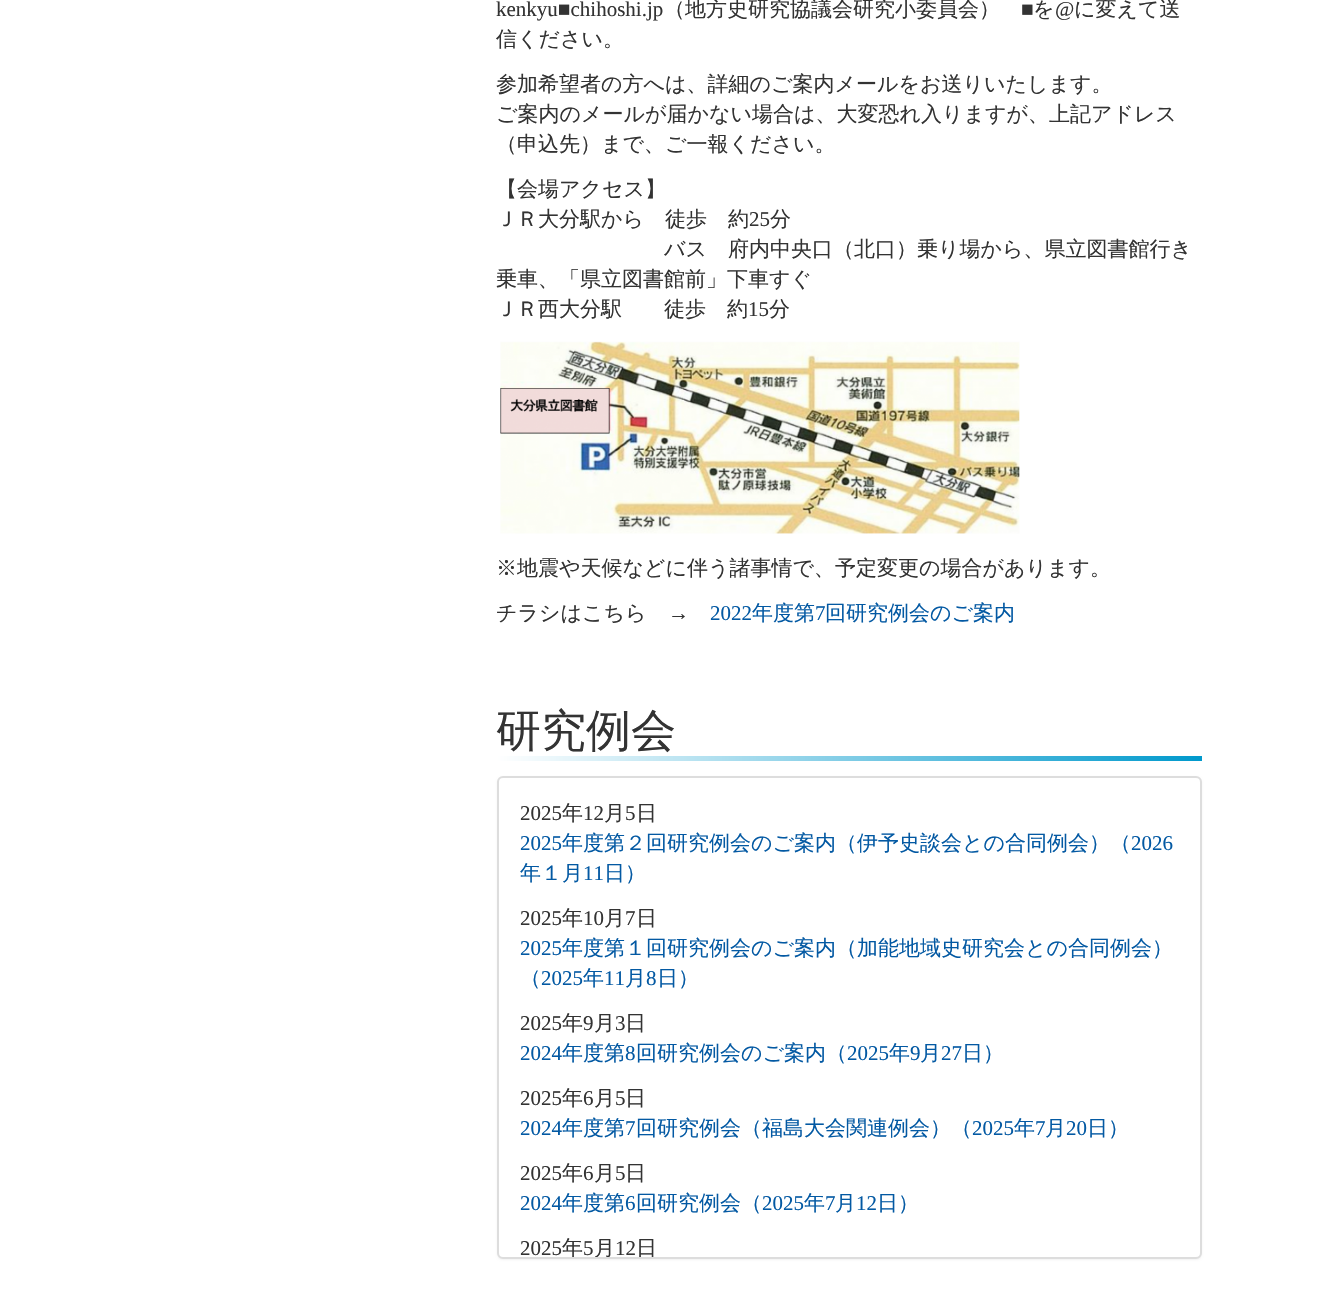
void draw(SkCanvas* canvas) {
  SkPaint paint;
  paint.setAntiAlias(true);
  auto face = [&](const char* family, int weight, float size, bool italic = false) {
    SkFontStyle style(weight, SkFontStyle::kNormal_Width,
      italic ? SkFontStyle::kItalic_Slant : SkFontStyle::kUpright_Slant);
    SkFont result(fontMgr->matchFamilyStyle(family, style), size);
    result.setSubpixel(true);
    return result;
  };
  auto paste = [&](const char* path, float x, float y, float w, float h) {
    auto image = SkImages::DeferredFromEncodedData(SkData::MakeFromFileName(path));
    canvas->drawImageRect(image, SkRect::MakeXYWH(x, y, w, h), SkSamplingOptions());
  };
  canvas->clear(0xffffffff);
  paste("img/1.png", 500, 341, 520, 193);
  {
    const SkColor colors[] = {0xffffffff, 0xff0099cc};
    const float stops[] = {0, 1};
    const SkPoint ends[] = {{497, 758}, {1202, 758}};
    paint.setShader(SkGradientShader::MakeLinear(ends, colors, stops, 2, SkTileMode::kClamp));
    paint.setAlpha(255);
  }
  canvas->drawRect(SkRect::MakeXYWH(497, 756, 705, 5), paint);
  paint.setShader(nullptr);
  paint.setColor(0x0d000000);
  paint.setMaskFilter(SkMaskFilter::MakeBlur(kNormal_SkBlurStyle, 1));
  canvas->drawRoundRect(SkRect::MakeXYWH(497, 777, 705, 483), 6, 6, paint);
  paint.setMaskFilter(nullptr);
  paint.setColor(0xffffffff);
  canvas->drawRoundRect(SkRect::MakeXYWH(498, 777, 703, 481), 5, 5, paint);
  paint.setStroke(true);
  paint.setStrokeWidth(2);
  paint.setColor(0xffdddddd);
  canvas->drawRoundRect(SkRect::MakeXYWH(498, 777, 703, 481), 5, 5, paint);
  auto f0 = face("Liberation Serif", 400, 21);
  paint.setStroke(false);
  paint.setColor(0xff333333);
  canvas->drawString("kenkyu■chihoshi.jp", 496, 16, f0, paint);
  auto f1 = face("WenQuanYi Zen Hei", 500, 21);
  canvas->drawString("（地方史研究協議会研究小委員会）", 664, 16, f1, paint);
  canvas->drawString("■", 1021, 16, f0, paint);
  canvas->drawString("を", 1033, 16, f1, paint);
  canvas->drawString("@", 1055, 16, f0, paint);
  {
    const struct { const char* s; float x, y; } items[] = {
      {"に変えて送", 1074, 16},
      {"信ください。", 496, 46},
      {"参加希望者の方へは、詳細のご案内メールをお送りいたします。", 496, 91},
      {"ご案内のメールが届かない場合は、大変恐れ入りますが、上記アドレス", 496, 121},
      {"（申込先）まで、ご一報ください。", 496, 151},
      {"【会場アクセス】", 496, 196},
      {"ＪＲ大分駅から　徒歩　約", 496, 226},
    };
    for (auto [s, x, y] : items) {
      canvas->drawString(s, x, y, f1, paint);
    }
  }
  canvas->drawString("25", 749, 226, f0, paint);
  {
    const struct { const char* s; float x, y; } items[] = {
      {"分", 770, 226},
      {"バス　府内中央口（北口）乗り場から、県立図書館行き", 664, 256},
      {"乗車、「県立図書館前」下車すぐ", 496, 286},
      {"ＪＲ西大分駅　　徒歩　約", 496, 316},
    };
    for (auto [s, x, y] : items) {
      canvas->drawString(s, x, y, f1, paint);
    }
  }
  canvas->drawString("15", 748, 316, f0, paint);
  {
    const struct { const char* s; float x, y; } items[] = {
      {"分", 769, 316},
      {"※地震や天候などに伴う諸事情で、予定変更の場合があります。", 496, 575},
      {"チラシはこちら", 496, 620},
    };
    for (auto [s, x, y] : items) {
      canvas->drawString(s, x, y, f1, paint);
    }
  }
  canvas->drawString("→", 668, 620, f0, paint);
  paint.setColor(0xff0359a3);
  canvas->drawString("2022", 710, 620, f0, paint);
  canvas->drawString("年度第", 752, 620, f1, paint);
  canvas->drawString("7", 815, 620, f0, paint);
  canvas->drawString("回研究例会のご案内", 825, 620, f1, paint);
  auto f2 = face("WenQuanYi Zen Hei", 500, 45);
  paint.setColor(0xff333333);
  canvas->drawString("研究例会", 496, 746, f2, paint);
  canvas->drawString("2025", 520, 820, f0, paint);
  canvas->drawString("年", 562, 820, f1, paint);
  canvas->drawString("12", 583, 820, f0, paint);
  canvas->drawString("月", 604, 820, f1, paint);
  canvas->drawString("5", 625, 820, f0, paint);
  canvas->drawString("日", 636, 820, f1, paint);
  paint.setColor(0xff0359a3);
  canvas->drawString("2025", 520, 850, f0, paint);
  canvas->drawString("年度第２回研究例会のご案内（伊予史談会との合同例会）（", 562, 850, f1, paint);
  canvas->drawString("2026", 1131, 850, f0, paint);
  canvas->drawString("年１月", 520, 880, f1, paint);
  canvas->drawString("11", 583, 880, f0, paint);
  canvas->drawString("日）", 604, 880, f1, paint);
  paint.setColor(0xff333333);
  canvas->drawString("2025", 520, 925, f0, paint);
  canvas->drawString("年", 562, 925, f1, paint);
  canvas->drawString("10", 583, 925, f0, paint);
  canvas->drawString("月", 604, 925, f1, paint);
  canvas->drawString("7", 625, 925, f0, paint);
  canvas->drawString("日", 636, 925, f1, paint);
  paint.setColor(0xff0359a3);
  canvas->drawString("2025", 520, 955, f0, paint);
  canvas->drawString("年度第１回研究例会のご案内（加能地域史研究会との合同例会）", 562, 955, f1, paint);
  canvas->drawString("（", 520, 985, f1, paint);
  canvas->drawString("2025", 541, 985, f0, paint);
  canvas->drawString("年", 583, 985, f1, paint);
  canvas->drawString("11", 604, 985, f0, paint);
  canvas->drawString("月", 625, 985, f1, paint);
  canvas->drawString("8", 646, 985, f0, paint);
  canvas->drawString("日）", 657, 985, f1, paint);
  paint.setColor(0xff333333);
  canvas->drawString("2025", 520, 1030, f0, paint);
  canvas->drawString("年", 562, 1030, f1, paint);
  canvas->drawString("9", 583, 1030, f0, paint);
  canvas->drawString("月", 594, 1030, f1, paint);
  canvas->drawString("3", 615, 1030, f0, paint);
  canvas->drawString("日", 625, 1030, f1, paint);
  paint.setColor(0xff0359a3);
  canvas->drawString("2024", 520, 1060, f0, paint);
  canvas->drawString("年度第", 562, 1060, f1, paint);
  canvas->drawString("8", 625, 1060, f0, paint);
  canvas->drawString("回研究例会のご案内（", 636, 1060, f1, paint);
  canvas->drawString("2025", 847, 1060, f0, paint);
  canvas->drawString("年", 889, 1060, f1, paint);
  canvas->drawString("9", 910, 1060, f0, paint);
  canvas->drawString("月", 920, 1060, f1, paint);
  canvas->drawString("27", 941, 1060, f0, paint);
  canvas->drawString("日）", 962, 1060, f1, paint);
  paint.setColor(0xff333333);
  canvas->drawString("2025", 520, 1105, f0, paint);
  canvas->drawString("年", 562, 1105, f1, paint);
  canvas->drawString("6", 583, 1105, f0, paint);
  canvas->drawString("月", 594, 1105, f1, paint);
  canvas->drawString("5", 615, 1105, f0, paint);
  canvas->drawString("日", 625, 1105, f1, paint);
  paint.setColor(0xff0359a3);
  canvas->drawString("2024", 520, 1135, f0, paint);
  canvas->drawString("年度第", 562, 1135, f1, paint);
  canvas->drawString("7", 625, 1135, f0, paint);
  canvas->drawString("回研究例会（福島大会関連例会）（", 636, 1135, f1, paint);
  canvas->drawString("2025", 972, 1135, f0, paint);
  canvas->drawString("年", 1014, 1135, f1, paint);
  canvas->drawString("7", 1035, 1135, f0, paint);
  canvas->drawString("月", 1045, 1135, f1, paint);
  canvas->drawString("20", 1066, 1135, f0, paint);
  canvas->drawString("日）", 1087, 1135, f1, paint);
  paint.setColor(0xff333333);
  canvas->drawString("2025", 520, 1180, f0, paint);
  canvas->drawString("年", 562, 1180, f1, paint);
  canvas->drawString("6", 583, 1180, f0, paint);
  canvas->drawString("月", 594, 1180, f1, paint);
  canvas->drawString("5", 615, 1180, f0, paint);
  canvas->drawString("日", 625, 1180, f1, paint);
  paint.setColor(0xff0359a3);
  canvas->drawString("2024", 520, 1210, f0, paint);
  canvas->drawString("年度第", 562, 1210, f1, paint);
  canvas->drawString("6", 625, 1210, f0, paint);
  canvas->drawString("回研究例会（", 636, 1210, f1, paint);
  canvas->drawString("2025", 762, 1210, f0, paint);
  canvas->drawString("年", 804, 1210, f1, paint);
  canvas->drawString("7", 825, 1210, f0, paint);
  canvas->drawString("月", 835, 1210, f1, paint);
  canvas->drawString("12", 856, 1210, f0, paint);
  canvas->drawString("日）", 877, 1210, f1, paint);
  paint.setColor(0xff333333);
  canvas->drawString("2025", 520, 1255, f0, paint);
  canvas->save();
  canvas->clipRect(SkRect::MakeXYWH(498, 777, 702, 480));
  canvas->drawString("年", 562, 1255, f1, paint);
  canvas->restore();
  canvas->drawString("5", 583, 1255, f0, paint);
  canvas->save();
  canvas->clipRect(SkRect::MakeXYWH(498, 777, 702, 480));
  canvas->drawString("月", 594, 1255, f1, paint);
  canvas->restore();
  canvas->drawString("12", 615, 1255, f0, paint);
  canvas->save();
  canvas->clipRect(SkRect::MakeXYWH(498, 777, 702, 480));
  canvas->drawString("日", 636, 1255, f1, paint);
  canvas->restore();
}
